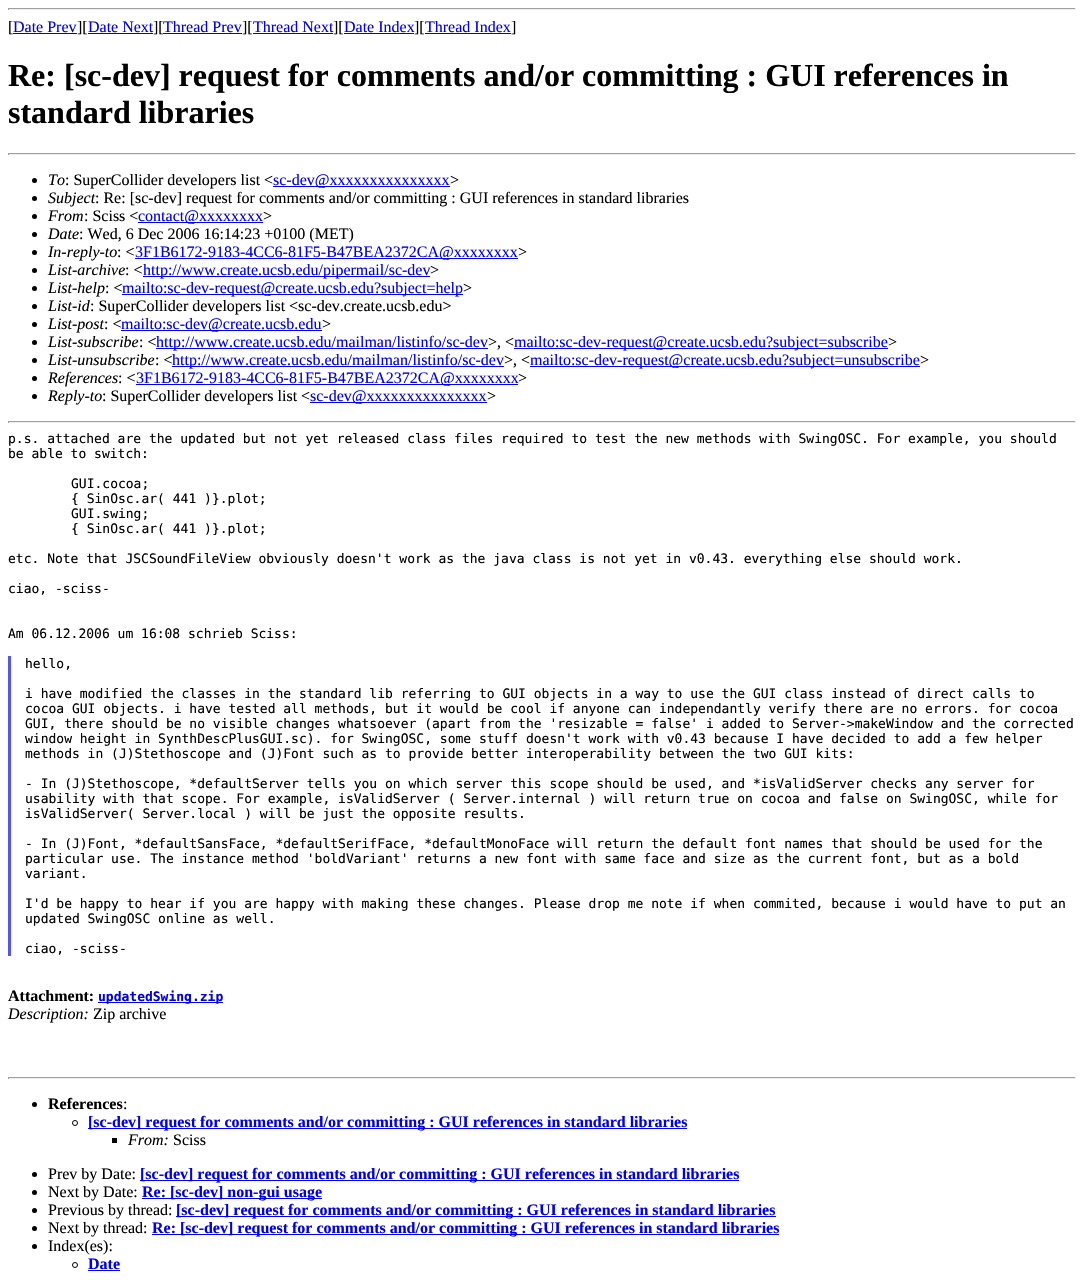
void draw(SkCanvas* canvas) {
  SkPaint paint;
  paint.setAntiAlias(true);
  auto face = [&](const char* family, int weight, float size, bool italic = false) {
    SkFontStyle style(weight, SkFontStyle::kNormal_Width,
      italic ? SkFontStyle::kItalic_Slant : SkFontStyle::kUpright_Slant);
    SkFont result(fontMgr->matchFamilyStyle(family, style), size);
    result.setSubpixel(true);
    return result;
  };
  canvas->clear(0xffffffff);
  {
    const struct { float x, y, w, h; SkColor color; } items[] = {
      {8, 8, 1068, 1, 0xff9f9f9f},
      {1075, 8, 1, 2, 0xffeeeeee},
      {8, 9, 1068, 1, 0xffeeeeee},
      {8, 8, 1, 2, 0xff9f9f9f},
      {13, 33, 64, 1, 0xff0000ee},
      {88, 33, 65, 1, 0xff0000ee},
      {163, 33, 79, 1, 0xff0000ee},
      {253, 33, 80, 1, 0xff0000ee},
      {344, 33, 70, 1, 0xff0000ee},
      {425, 33, 86, 1, 0xff0000ee},
      {8, 153, 1068, 1, 0xff9f9f9f},
      {1075, 153, 1, 2, 0xffeeeeee},
      {8, 154, 1068, 1, 0xffeeeeee},
      {8, 153, 1, 2, 0xff9f9f9f},
    };
    for (auto [x, y, w, h, color] : items) {
      paint.setColor(color);
      canvas->drawRect(SkRect::MakeXYWH(x, y, w, h), paint);
    }
  }
  paint.setColor(0xff000000);
  canvas->drawCircle(34.5f, 180.5f, 2.5f, paint);
  paint.setColor(0xff0000ee);
  canvas->drawRect(SkRect::MakeXYWH(273, 186, 177, 1), paint);
  paint.setColor(0xff000000);
  canvas->drawCircle(34.5f, 198.5f, 2.5f, paint);
  canvas->drawCircle(34.5f, 216.5f, 2.5f, paint);
  paint.setColor(0xff0000ee);
  canvas->drawRect(SkRect::MakeXYWH(138, 222, 125, 1), paint);
  paint.setColor(0xff000000);
  canvas->drawCircle(34.5f, 234.5f, 2.5f, paint);
  canvas->drawCircle(34.5f, 252.5f, 2.5f, paint);
  paint.setColor(0xff0000ee);
  canvas->drawRect(SkRect::MakeXYWH(135, 258, 383, 1), paint);
  paint.setColor(0xff000000);
  canvas->drawCircle(34.5f, 270.5f, 2.5f, paint);
  paint.setColor(0xff0000ee);
  canvas->drawRect(SkRect::MakeXYWH(143, 276, 287, 1), paint);
  paint.setColor(0xff000000);
  canvas->drawCircle(34.5f, 288.5f, 2.5f, paint);
  paint.setColor(0xff0000ee);
  canvas->drawRect(SkRect::MakeXYWH(122, 294, 341, 1), paint);
  paint.setColor(0xff000000);
  canvas->drawCircle(34.5f, 306.5f, 2.5f, paint);
  canvas->drawCircle(34.5f, 324.5f, 2.5f, paint);
  paint.setColor(0xff0000ee);
  canvas->drawRect(SkRect::MakeXYWH(121, 330, 201, 1), paint);
  paint.setColor(0xff000000);
  canvas->drawCircle(34.5f, 342.5f, 2.5f, paint);
  paint.setColor(0xff0000ee);
  canvas->drawRect(SkRect::MakeXYWH(156, 348, 332, 1), paint);
  canvas->drawRect(SkRect::MakeXYWH(514, 348, 374, 1), paint);
  paint.setColor(0xff000000);
  canvas->drawCircle(34.5f, 360.5f, 2.5f, paint);
  paint.setColor(0xff0000ee);
  canvas->drawRect(SkRect::MakeXYWH(172, 366, 332, 1), paint);
  canvas->drawRect(SkRect::MakeXYWH(530, 366, 390, 1), paint);
  paint.setColor(0xff000000);
  canvas->drawCircle(34.5f, 378.5f, 2.5f, paint);
  paint.setColor(0xff0000ee);
  canvas->drawRect(SkRect::MakeXYWH(136, 384, 382, 1), paint);
  paint.setColor(0xff000000);
  canvas->drawCircle(34.5f, 396.5f, 2.5f, paint);
  {
    const struct { float x, y, w, h; SkColor color; } items[] = {
      {310, 402, 177, 1, 0xff0000ee},
      {8, 421, 1068, 1, 0xff9f9f9f},
      {1075, 421, 1, 2, 0xffeeeeee},
      {8, 422, 1068, 1, 0xffeeeeee},
      {8, 421, 1, 2, 0xff9f9f9f},
      {8, 656, 3, 300, 0xff5555ee},
      {98, 1002, 125, 1, 0xff0000ee},
      {8, 1077, 1068, 1, 0xff9f9f9f},
      {1075, 1077, 1, 2, 0xffeeeeee},
      {8, 1078, 1068, 1, 0xffeeeeee},
      {8, 1077, 1, 2, 0xff9f9f9f},
    };
    for (auto [x, y, w, h, color] : items) {
      paint.setColor(color);
      canvas->drawRect(SkRect::MakeXYWH(x, y, w, h), paint);
    }
  }
  paint.setColor(0xff000000);
  canvas->drawCircle(34.5f, 1104.5f, 2.5f, paint);
  paint.setStroke(true);
  paint.setStrokeWidth(1);
  canvas->drawCircle(75, 1123, 2.5f, paint);
  paint.setStroke(false);
  paint.setColor(0xff0000ee);
  canvas->drawRect(SkRect::MakeXYWH(88, 1128, 599, 1), paint);
  paint.setColor(0xff000000);
  canvas->drawRect(SkRect::MakeXYWH(112, 1138, 5, 5), paint);
  canvas->drawCircle(34.5f, 1174.5f, 2.5f, paint);
  paint.setColor(0xff0000ee);
  canvas->drawRect(SkRect::MakeXYWH(140, 1180, 599, 1), paint);
  paint.setColor(0xff000000);
  canvas->drawCircle(34.5f, 1192.5f, 2.5f, paint);
  paint.setColor(0xff0000ee);
  canvas->drawRect(SkRect::MakeXYWH(142, 1198, 180, 1), paint);
  paint.setColor(0xff000000);
  canvas->drawCircle(34.5f, 1210.5f, 2.5f, paint);
  paint.setColor(0xff0000ee);
  canvas->drawRect(SkRect::MakeXYWH(176, 1216, 600, 1), paint);
  paint.setColor(0xff000000);
  canvas->drawCircle(34.5f, 1228.5f, 2.5f, paint);
  paint.setColor(0xff0000ee);
  canvas->drawRect(SkRect::MakeXYWH(152, 1234, 627, 1), paint);
  paint.setColor(0xff000000);
  canvas->drawCircle(34.5f, 1246.5f, 2.5f, paint);
  paint.setStroke(true);
  canvas->drawCircle(75, 1265, 2.5f, paint);
  paint.setStroke(false);
  paint.setColor(0xff0000ee);
  canvas->drawRect(SkRect::MakeXYWH(88, 1270, 32, 1), paint);
  auto f0 = face("Liberation Serif", 400, 16);
  paint.setColor(0xff000000);
  canvas->drawString("[", 8, 32, f0, paint);
  paint.setColor(0xff0000ee);
  canvas->drawString("Date Prev", 13, 32, f0, paint);
  paint.setColor(0xff000000);
  canvas->drawString("][", 77, 32, f0, paint);
  paint.setColor(0xff0000ee);
  canvas->drawString("Date Next", 88, 32, f0, paint);
  paint.setColor(0xff000000);
  canvas->drawString("][", 153, 32, f0, paint);
  paint.setColor(0xff0000ee);
  canvas->drawString("Thread Prev", 163, 32, f0, paint);
  paint.setColor(0xff000000);
  canvas->drawString("][", 242, 32, f0, paint);
  paint.setColor(0xff0000ee);
  canvas->drawString("Thread Next", 253, 32, f0, paint);
  paint.setColor(0xff000000);
  canvas->drawString("][", 333, 32, f0, paint);
  paint.setColor(0xff0000ee);
  canvas->drawString("Date Index", 344, 32, f0, paint);
  paint.setColor(0xff000000);
  canvas->drawString("][", 414, 32, f0, paint);
  paint.setColor(0xff0000ee);
  canvas->drawString("Thread Index", 425, 32, f0, paint);
  paint.setColor(0xff000000);
  canvas->drawString("]", 511, 32, f0, paint);
  auto f1 = face("Liberation Serif", 700, 32);
  canvas->drawString("Re: [sc-dev] request for comments and/or committing : GUI references in", 8, 86, f1, paint);
  canvas->drawString("standard libraries", 8, 123, f1, paint);
  auto f2 = face("Liberation Serif", 400, 16, true);
  canvas->drawString("To", 48, 185, f2, paint);
  canvas->drawString(": SuperCollider developers list <", 65, 185, f0, paint);
  paint.setColor(0xff0000ee);
  canvas->drawString("sc-dev@xxxxxxxxxxxxxxx", 273, 185, f0, paint);
  paint.setColor(0xff000000);
  canvas->drawString(">", 450, 185, f0, paint);
  canvas->drawString("Subject", 48, 203, f2, paint);
  canvas->drawString(": Re: [sc-dev] request for comments and/or committing : GUI references in standard libraries", 95, 203, f0, paint);
  canvas->drawString("From", 48, 221, f2, paint);
  canvas->drawString(": Sciss <", 84, 221, f0, paint);
  paint.setColor(0xff0000ee);
  canvas->drawString("contact@xxxxxxxx", 138, 221, f0, paint);
  paint.setColor(0xff000000);
  canvas->drawString(">", 263, 221, f0, paint);
  canvas->drawString("Date", 48, 239, f2, paint);
  canvas->drawString(": Wed, 6 Dec 2006 16:14:23 +0100 (MET)", 79, 239, f0, paint);
  canvas->drawString("In-reply-to", 48, 257, f2, paint);
  canvas->drawString(": <", 117, 257, f0, paint);
  paint.setColor(0xff0000ee);
  canvas->drawString("3F1B6172-9183-4CC6-81F5-B47BEA2372CA@xxxxxxxx", 135, 257, f0, paint);
  paint.setColor(0xff000000);
  canvas->drawString(">", 518, 257, f0, paint);
  canvas->drawString("List-archive", 48, 275, f2, paint);
  canvas->drawString(": <", 125, 275, f0, paint);
  paint.setColor(0xff0000ee);
  canvas->drawString("http://www.create.ucsb.edu/pipermail/sc-dev", 143, 275, f0, paint);
  paint.setColor(0xff000000);
  canvas->drawString(">", 430, 275, f0, paint);
  canvas->drawString("List-help", 48, 293, f2, paint);
  canvas->drawString(": <", 105, 293, f0, paint);
  paint.setColor(0xff0000ee);
  canvas->drawString("mailto:sc-dev-request@create.ucsb.edu?subject=help", 122, 293, f0, paint);
  paint.setColor(0xff000000);
  canvas->drawString(">", 463, 293, f0, paint);
  canvas->drawString("List-id", 48, 311, f2, paint);
  canvas->drawString(": SuperCollider developers list <sc-dev.create.ucsb.edu>", 90, 311, f0, paint);
  canvas->drawString("List-post", 48, 329, f2, paint);
  canvas->drawString(": <", 104, 329, f0, paint);
  paint.setColor(0xff0000ee);
  canvas->drawString("mailto:sc-dev@create.ucsb.edu", 121, 329, f0, paint);
  paint.setColor(0xff000000);
  canvas->drawString(">", 322, 329, f0, paint);
  canvas->drawString("List-subscribe", 48, 347, f2, paint);
  canvas->drawString(": <", 139, 347, f0, paint);
  paint.setColor(0xff0000ee);
  canvas->drawString("http://www.create.ucsb.edu/mailman/listinfo/sc-dev", 156, 347, f0, paint);
  paint.setColor(0xff000000);
  canvas->drawString(">, <", 488, 347, f0, paint);
  paint.setColor(0xff0000ee);
  canvas->drawString("mailto:sc-dev-request@create.ucsb.edu?subject=subscribe", 514, 347, f0, paint);
  paint.setColor(0xff000000);
  canvas->drawString(">", 888, 347, f0, paint);
  canvas->drawString("List-unsubscribe", 48, 365, f2, paint);
  canvas->drawString(": <", 155, 365, f0, paint);
  paint.setColor(0xff0000ee);
  canvas->drawString("http://www.create.ucsb.edu/mailman/listinfo/sc-dev", 172, 365, f0, paint);
  paint.setColor(0xff000000);
  canvas->drawString(">, <", 504, 365, f0, paint);
  paint.setColor(0xff0000ee);
  canvas->drawString("mailto:sc-dev-request@create.ucsb.edu?subject=unsubscribe", 530, 365, f0, paint);
  paint.setColor(0xff000000);
  canvas->drawString(">", 920, 365, f0, paint);
  canvas->drawString("References", 48, 383, f2, paint);
  canvas->drawString(": <", 118, 383, f0, paint);
  paint.setColor(0xff0000ee);
  canvas->drawString("3F1B6172-9183-4CC6-81F5-B47BEA2372CA@xxxxxxxx", 136, 383, f0, paint);
  paint.setColor(0xff000000);
  canvas->drawString(">", 518, 383, f0, paint);
  canvas->drawString("Reply-to", 48, 401, f2, paint);
  canvas->drawString(": SuperCollider developers list <", 102, 401, f0, paint);
  paint.setColor(0xff0000ee);
  canvas->drawString("sc-dev@xxxxxxxxxxxxxxx", 310, 401, f0, paint);
  paint.setColor(0xff000000);
  canvas->drawString(">", 487, 401, f0, paint);
  auto f3 = face("DejaVu Sans Mono", 400, 13);
  {
    const struct { const char* s; float x, y; } items[] = {
      {"p.s. attached are the updated but not yet released class files required to test the new methods with SwingOSC. For example, you should", 8, 443},
      {"be able to switch:", 8, 458},
      {"GUI.cocoa;", 71, 488},
      {"{ SinOsc.ar( 441 )}.plot;", 71, 503},
      {"GUI.swing;", 71, 518},
      {"{ SinOsc.ar( 441 )}.plot;", 71, 533},
      {"etc. Note that JSCSoundFileView obviously doesn't work as the java class is not yet in v0.43. everything else should work.", 8, 563},
      {"ciao, -sciss-", 8, 593},
      {"Am 06.12.2006 um 16:08 schrieb Sciss:", 8, 638},
      {"hello,", 25, 668},
      {"i have modified the classes in the standard lib referring to GUI objects in a way to use the GUI class instead of direct calls to", 25, 698},
      {"cocoa GUI objects. i have tested all methods, but it would be cool if anyone can independantly verify there are no errors. for cocoa", 25, 713},
      {"GUI, there should be no visible changes whatsoever (apart from the 'resizable = false' i added to Server->makeWindow and the corrected", 25, 728},
      {"window height in SynthDescPlusGUI.sc). for SwingOSC, some stuff doesn't work with v0.43 because I have decided to add a few helper", 25, 743},
      {"methods in (J)Stethoscope and (J)Font such as to provide better interoperability between the two GUI kits:", 25, 758},
      {"- In (J)Stethoscope, *defaultServer tells you on which server this scope should be used, and *isValidServer checks any server for", 25, 788},
      {"usability with that scope. For example, isValidServer ( Server.internal ) will return true on cocoa and false on SwingOSC, while for", 25, 803},
      {"isValidServer( Server.local ) will be just the opposite results.", 25, 818},
      {"- In (J)Font, *defaultSansFace, *defaultSerifFace, *defaultMonoFace will return the default font names that should be used for the", 25, 848},
      {"particular use. The instance method 'boldVariant' returns a new font with same face and size as the current font, but as a bold", 25, 863},
      {"variant.", 25, 878},
      {"I'd be happy to hear if you are happy with making these changes. Please drop me note if when commited, because i would have to put an", 25, 908},
      {"updated SwingOSC online as well.", 25, 923},
      {"ciao, -sciss-", 25, 953},
    };
    for (auto [s, x, y] : items) {
      canvas->drawString(s, x, y, f3, paint);
    }
  }
  auto f4 = face("Liberation Serif", 700, 16);
  canvas->drawString("Attachment:", 8, 1001, f4, paint);
  auto f5 = face("DejaVu Sans Mono", 700, 13);
  paint.setColor(0xff0000ee);
  canvas->drawString("updatedSwing.zip", 98, 1001, f5, paint);
  paint.setColor(0xff000000);
  canvas->drawString("Description:", 8, 1019, f2, paint);
  canvas->drawString("Zip archive", 93, 1019, f0, paint);
  canvas->drawString("References", 48, 1109, f4, paint);
  canvas->drawString(":", 123, 1109, f0, paint);
  paint.setColor(0xff0000ee);
  canvas->drawString("[sc-dev] request for comments and/or committing : GUI references in standard libraries", 88, 1127, f4, paint);
  paint.setColor(0xff000000);
  canvas->drawString("From:", 128, 1145, f2, paint);
  canvas->drawString("Sciss", 173, 1145, f0, paint);
  canvas->drawString("Prev by Date:", 48, 1179, f0, paint);
  paint.setColor(0xff0000ee);
  canvas->drawString("[sc-dev] request for comments and/or committing : GUI references in standard libraries", 140, 1179, f4, paint);
  paint.setColor(0xff000000);
  canvas->drawString("Next by Date:", 48, 1197, f0, paint);
  paint.setColor(0xff0000ee);
  canvas->drawString("Re: [sc-dev] non-gui usage", 142, 1197, f4, paint);
  paint.setColor(0xff000000);
  canvas->drawString("Previous by thread:", 48, 1215, f0, paint);
  paint.setColor(0xff0000ee);
  canvas->drawString("[sc-dev] request for comments and/or committing : GUI references in standard libraries", 176, 1215, f4, paint);
  paint.setColor(0xff000000);
  canvas->drawString("Next by thread:", 48, 1233, f0, paint);
  paint.setColor(0xff0000ee);
  canvas->drawString("Re: [sc-dev] request for comments and/or committing : GUI references in standard libraries", 152, 1233, f4, paint);
  paint.setColor(0xff000000);
  canvas->drawString("Index(es):", 48, 1251, f0, paint);
  paint.setColor(0xff0000ee);
  canvas->drawString("Date", 88, 1269, f4, paint);
}
